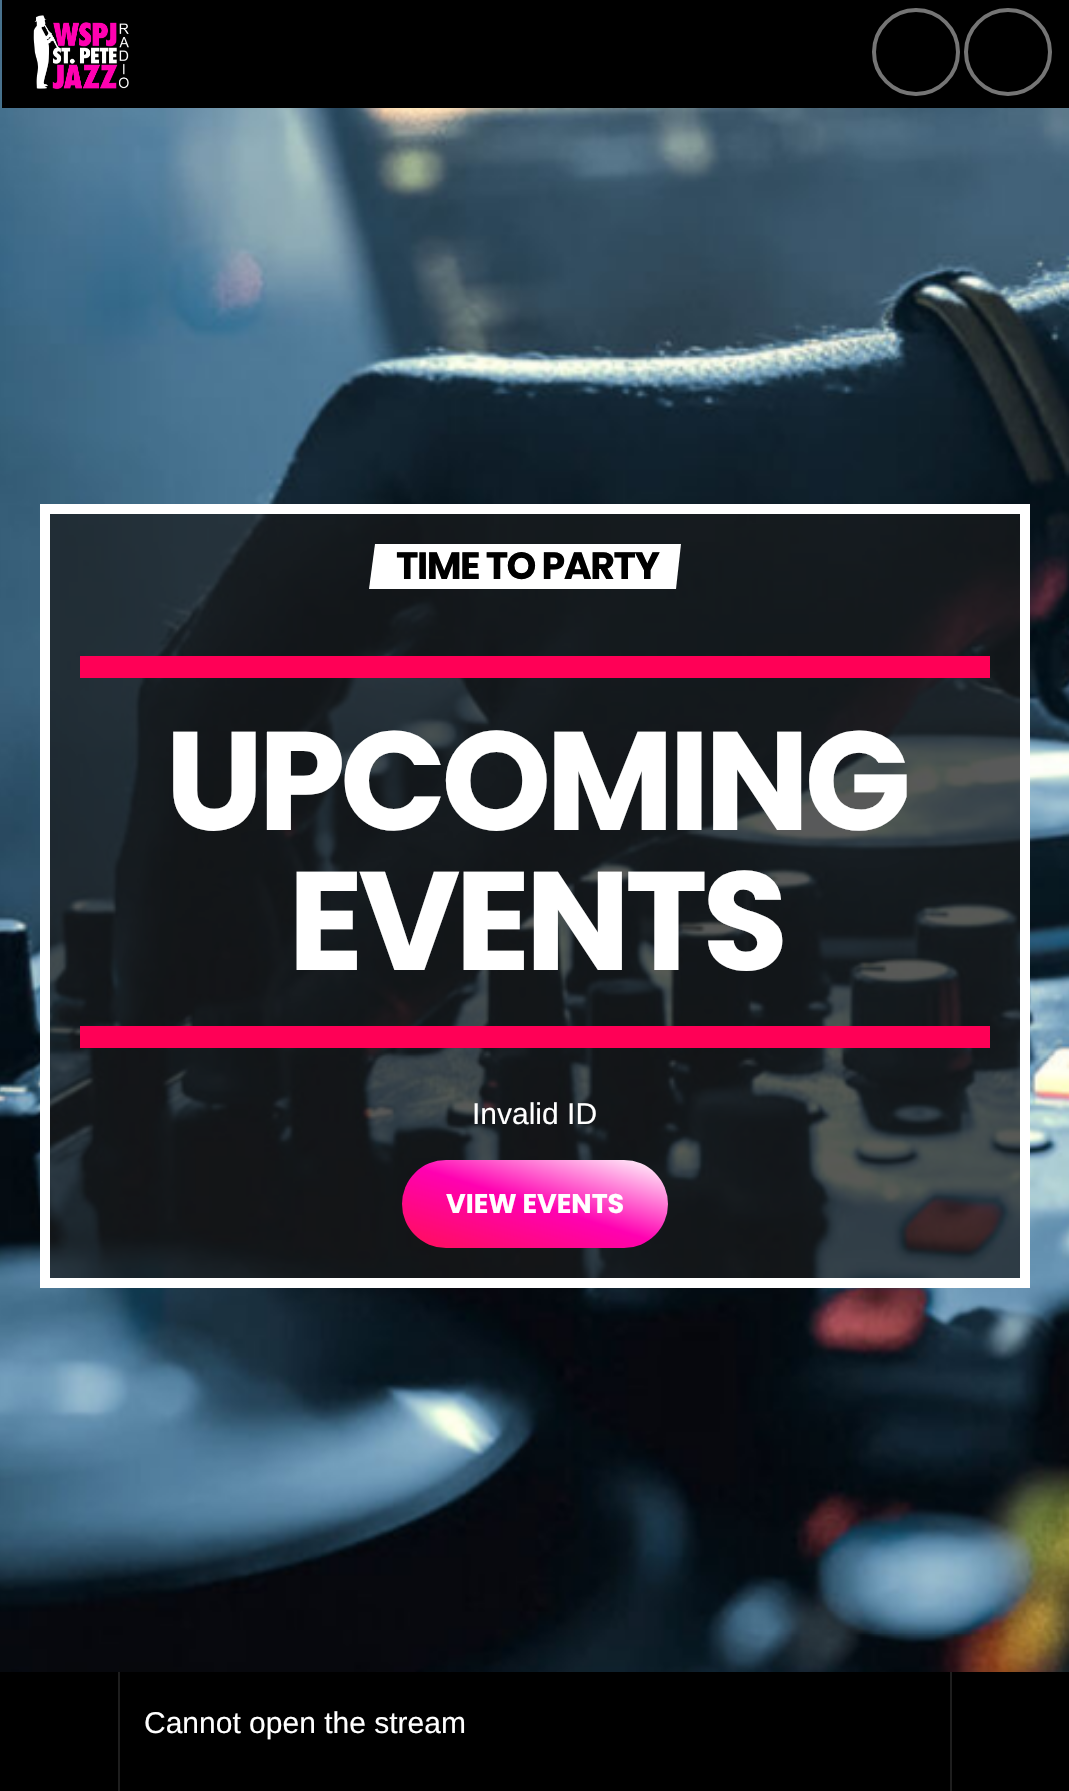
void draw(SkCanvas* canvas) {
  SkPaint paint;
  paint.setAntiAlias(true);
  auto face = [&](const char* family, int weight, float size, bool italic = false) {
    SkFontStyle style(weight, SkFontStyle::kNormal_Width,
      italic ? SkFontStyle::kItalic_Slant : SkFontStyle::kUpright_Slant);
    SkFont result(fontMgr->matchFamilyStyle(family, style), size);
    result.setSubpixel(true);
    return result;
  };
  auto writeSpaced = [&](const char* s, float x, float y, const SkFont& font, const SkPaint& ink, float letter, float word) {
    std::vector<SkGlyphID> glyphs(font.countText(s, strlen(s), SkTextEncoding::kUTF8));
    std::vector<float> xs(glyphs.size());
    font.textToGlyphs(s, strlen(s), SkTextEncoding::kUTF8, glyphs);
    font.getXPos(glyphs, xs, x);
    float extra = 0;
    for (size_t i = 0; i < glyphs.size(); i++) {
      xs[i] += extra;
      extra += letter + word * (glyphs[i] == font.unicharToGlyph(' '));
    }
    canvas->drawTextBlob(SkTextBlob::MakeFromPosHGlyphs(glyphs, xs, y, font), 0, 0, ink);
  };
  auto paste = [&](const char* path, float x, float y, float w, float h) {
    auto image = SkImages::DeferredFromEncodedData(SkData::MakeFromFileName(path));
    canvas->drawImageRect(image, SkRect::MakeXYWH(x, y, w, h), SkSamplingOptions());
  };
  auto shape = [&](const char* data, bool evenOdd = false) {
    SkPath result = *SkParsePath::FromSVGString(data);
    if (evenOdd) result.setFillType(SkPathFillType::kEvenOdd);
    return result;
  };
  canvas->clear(0xffffffff);
  paste("img/2.png", 0, 0, 1069, 1672);
  paint.setColor(0xff000000);
  canvas->drawRect(SkRect::MakeXYWH(2, 0, 1067, 108), paint);
  paste("img/1.png", 33, 15, 96, 75);
  paint.setStroke(true);
  paint.setStrokeWidth(4);
  paint.setColor(0xff757575);
  canvas->drawCircle(916, 52, 42, paint);
  canvas->drawCircle(1008, 52, 42, paint);
  paint.setStroke(false);
  paint.setColor(0xb818191a);
  canvas->drawRect(SkRect::MakeXYWH(45, 509, 980, 774), paint);
  paint.setStroke(true);
  paint.setStrokeWidth(10);
  paint.setColor(0xffffffff);
  canvas->drawRect(SkRect::MakeXYWH(45, 509, 980, 774), paint);
  paint.setStroke(false);
  canvas->drawPath(shape("M375 544H681L676 589H369Z"), paint);
  paint.setColor(0xffff0056);
  canvas->drawRect(SkRect::MakeXYWH(80, 656, 910, 22), paint);
  canvas->drawRect(SkRect::MakeXYWH(80, 1026, 910, 22), paint);
  {
    const SkColor colors[] = {0xffffffff, 0xffff01b1, 0xffff0f59};
    const float stops[] = {0, 0.5f, 1};
    const SkPoint ends[] = {{559, 1127}, {511, 1281}};
    paint.setShader(SkGradientShader::MakeLinear(ends, colors, stops, 3, SkTileMode::kClamp));
    paint.setAlpha(255);
  }
  canvas->drawRoundRect(SkRect::MakeXYWH(402, 1160, 266, 88), 44, 44, paint);
  paint.setShader(nullptr);
  {
    const struct { float x, y, w, h; SkColor color; } items[] = {
      {0, 1672, 1069, 119, 0xff000000},
      {118, 1672, 2, 119, 0xff1e1e1e},
      {950, 1672, 2, 119, 0xff1e1e1e},
    };
    for (auto [x, y, w, h, color] : items) {
      paint.setColor(color);
      canvas->drawRect(SkRect::MakeXYWH(x, y, w, h), paint);
    }
  }
  auto f0 = face("Poppins", 700, 38);
  paint.setColor(0xff000000);
  writeSpaced("TIME TO PARTY", 396, 579, f0, paint, -1.5f, 0);
  auto f1 = face("Poppins", 700, 140);
  paint.setColor(0xffffffff);
  writeSpaced("UPCOMING", 165, 830, f1, paint, -5.5f, 0);
  writeSpaced("EVENTS", 288, 970, f1, paint, -5.5f, 0);
  auto f2 = face("Liberation Sans", 400, 30);
  canvas->drawString("Invalid ID", 472, 1124, f2, paint);
  auto f3 = face("Poppins", 700, 27);
  canvas->drawString("VIEW EVENTS", 446, 1213, f3, paint);
  canvas->drawString("Cannot open the stream", 144, 1733, f2, paint);
}
